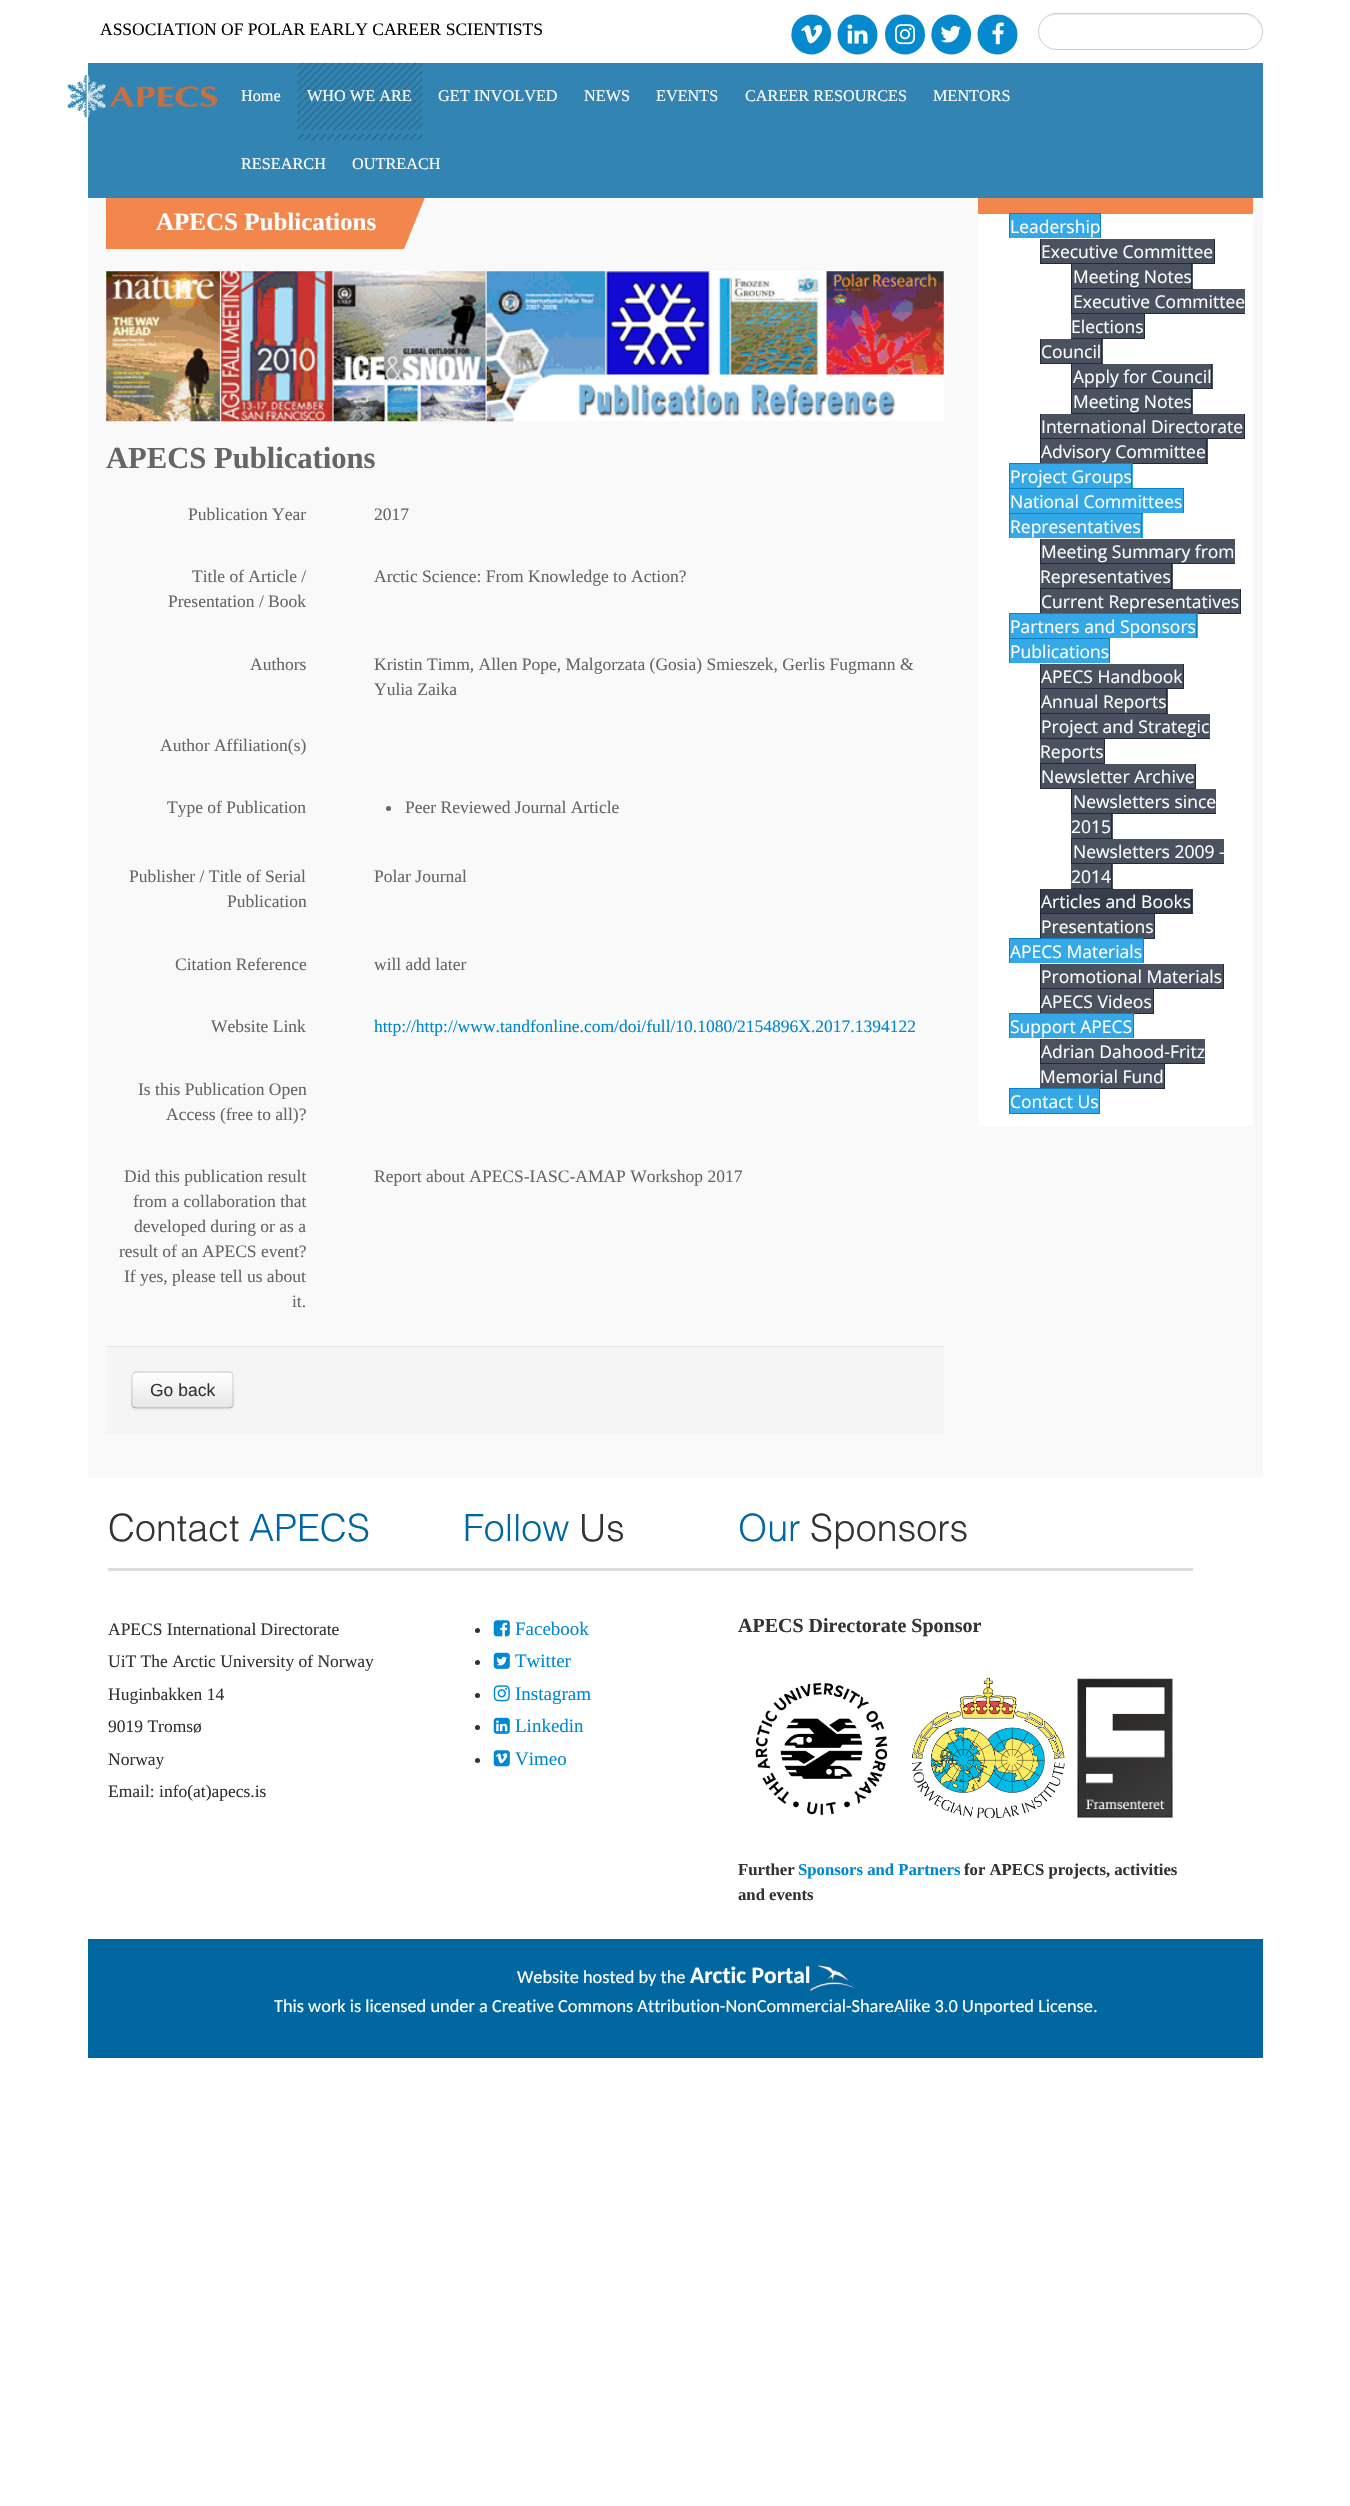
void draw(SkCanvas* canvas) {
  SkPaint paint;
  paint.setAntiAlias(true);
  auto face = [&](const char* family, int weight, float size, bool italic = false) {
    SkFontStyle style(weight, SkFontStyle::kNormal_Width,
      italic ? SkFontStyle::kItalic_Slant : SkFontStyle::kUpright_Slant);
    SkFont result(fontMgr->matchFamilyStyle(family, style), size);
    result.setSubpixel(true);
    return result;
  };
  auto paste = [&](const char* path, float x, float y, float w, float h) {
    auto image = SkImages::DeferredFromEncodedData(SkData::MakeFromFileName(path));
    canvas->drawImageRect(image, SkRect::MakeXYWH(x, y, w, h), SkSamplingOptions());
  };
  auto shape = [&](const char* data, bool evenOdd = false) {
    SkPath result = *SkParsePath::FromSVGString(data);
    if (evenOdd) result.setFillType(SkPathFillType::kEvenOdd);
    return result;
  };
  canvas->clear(0xffffffff);
  paint.setColor(0xff058acd);
  canvas->drawPath(shape("M828.5 24.5C830.5 28 831.5 32 831 36C830 55.5 804 61.5 794 44.5C792 41 791 37 791.5 33C792.5 13.5 818.5 7.5 828.5 24.5Z"), paint);
  paste("img/1.png", 801, 25, 22, 19);
  canvas->drawPath(shape("M875 24.5C877 28 877.5 32 877.5 36C876 55.5 850 61.5 840 44.5C838 41 837.5 37 837.5 33C839 13.5 865 7.5 875 24.5Z"), paint);
  paste("img/2.png", 847, 24, 21, 20);
  canvas->drawPath(shape("M922.5 24.5C924.5 28 925 32 925 36C923.5 55.5 897.5 61.5 887.5 44.5C885.5 41 885 37 885 33C886.5 13.5 912.5 7.5 922.5 24.5Z"), paint);
  paste("img/3.png", 895, 24, 20, 21);
  canvas->drawPath(shape("M968.5 24.5C970.5 28 971.5 32 971 36C970 55.5 944 61.5 934 44.5C932 41 931 37 931.5 33C932.5 13.5 958.5 7.5 968.5 24.5Z"), paint);
  paste("img/4.png", 940, 25, 21, 18);
  canvas->drawPath(shape("M1015 24.5C1017 28 1017.5 32 1017.5 36C1016 55.5 990 61.5 980 44.5C978 41 977.5 37 977.5 33C979 13.5 1005 7.5 1015 24.5Z"), paint);
  paste("img/5.png", 992, 22, 12, 23);
  paint.setColor(0xffececec);
  canvas->drawPath(shape("M1056 15H1247C1255 17 1260 24 1261 31C1261 21 1253 14 1244 14H1056C1049 14 1042 19 1040 26C1042 20 1048 15 1056 15Z"), paint);
  paint.setStroke(true);
  paint.setStrokeWidth(1);
  paint.setColor(0xffcdcdcd);
  canvas->drawRoundRect(SkRect::MakeXYWH(1038.5f, 13.5f, 224, 36), 18, 18, paint);
  paint.setStroke(false);
  paint.setColor(0xfff9f9f9);
  canvas->drawRect(SkRect::MakeXYWH(88, 198, 1175, 1280), paint);
  canvas->save();
  canvas->clipRect(SkRect::MakeXYWH(106, 186, 838, 79));
  paint.setColor(0xfff2864d);
  canvas->drawPath(shape("M95 195H426L404 249H73Z"), paint);
  canvas->restore();
  paint.setColor(0xff3284b2);
  canvas->drawRect(SkRect::MakeXYWH(88, 63, 1175, 135), paint);
  paste("img/6.png", 67, 74, 151, 44);
  paste("img/7.png", 297, 62, 126, 69);
  paste("img/8.png", 297, 133, 126, 7);
  paste("img/9.png", 106, 271, 838, 151);
  paint.setColor(0xff666666);
  canvas->drawCircle(388.5f, 808.5f, 2.5f, paint);
  paint.setColor(0xfff5f5f5);
  canvas->drawRect(SkRect::MakeXYWH(106, 1347, 838, 87), paint);
  paint.setColor(0xffe5e5e5);
  canvas->drawRect(SkRect::MakeXYWH(106, 1346, 838, 1), paint);
  paint.setColor(0x0d000000);
  paint.setMaskFilter(SkMaskFilter::MakeBlur(kNormal_SkBlurStyle, 1));
  canvas->drawRoundRect(SkRect::MakeXYWH(131, 1373, 103, 37), 5, 5, paint);
  paint.setMaskFilter(nullptr);
  paint.setColor(0xfff5f5f5);
  canvas->drawRoundRect(SkRect::MakeXYWH(131, 1371, 103, 38), 5, 5, paint);
  canvas->save();
  canvas->clipPath(shape("M136 1371H229C232 1371 234 1373 234 1376V1404C234 1407 232 1409 229 1409H136C133 1409 131 1407 131 1404V1376C131 1373 133 1371 136 1371Z"), true);
  {
    const SkColor colors[] = {0xffffffff, 0xffe6e6e6};
    const float stops[] = {0, 1};
    const SkPoint ends[] = {{183, 1373}, {183, 1408}};
    paint.setShader(SkGradientShader::MakeLinear(ends, colors, stops, 2, SkTileMode::kClamp));
    paint.setAlpha(255);
  }
  canvas->drawRect(SkRect::MakeXYWH(131, 1373, 103, 35), paint);
  canvas->restore();
  paint.setShader(nullptr);
  paint.setColor(0x33ffffff);
  canvas->drawPath(shape("M136 1374H229C234 1374 232 1384 232 1387V1407C232 1406 233 1405 233 1404V1377C233 1375 231 1373 229 1373H137C136 1373 135 1374 134 1374Z"), paint);
  paint.setStroke(true);
  paint.setStrokeWidth(1.2f);
  paint.setColor(0x40000000);
  canvas->drawPath(shape("M232 1407L229 1408H136L133 1407"), paint);
  paint.setColor(0x26000000);
  canvas->drawPath(shape("M133 1407C131 1405 132 1401.5 132 1399V1390C132 1368.5 129 1372 151.5 1372H213.5C236 1372 233 1368.5 233 1390V1399C233 1401.5 234 1405 232 1407"), paint);
  paint.setStroke(false);
  {
    const struct { float x, y, w, h; SkColor color; } items[] = {
      {978, 198, 275, 16, 0xfff2864d},
      {978, 214, 275, 912, 0xffffffff},
      {1010, 214, 90, 24, 0xff35a9e7},
      {1009, 213, 92, 1, 0xff0d81bf},
      {1100, 213, 1, 25, 0xff0d81bf},
      {1009, 213, 1, 25, 0xff0d81bf},
      {1041, 239, 173, 24, 0xff49525e},
      {1214, 239, 1, 25, 0xff212a36},
      {1040, 263, 175, 1, 0xff212a36},
      {1040, 239, 1, 25, 0xff212a36},
      {1072, 264, 121, 24, 0xff49525e},
      {1191, 264, 1, 25, 0xff212a36},
      {1071, 288, 122, 1, 0xff212a36},
      {1071, 264, 1, 25, 0xff212a36},
      {1072, 289, 173, 24, 0xff49525e},
      {1071, 313, 174, 1, 0xff212a36},
      {1071, 289, 1, 25, 0xff212a36},
      {1071, 314, 73, 24, 0xff49525e},
      {1144, 314, 1, 25, 0xff212a36},
      {1071, 338, 74, 1, 0xff212a36},
      {1041, 339, 62, 24, 0xff49525e},
      {1101, 339, 1, 25, 0xff212a36},
      {1040, 363, 63, 1, 0xff212a36},
      {1040, 339, 1, 25, 0xff212a36},
      {1072, 364, 141, 24, 0xff49525e},
      {1211, 364, 1, 25, 0xff212a36},
      {1071, 388, 142, 1, 0xff212a36},
      {1071, 364, 1, 25, 0xff212a36},
      {1072, 389, 121, 24, 0xff49525e},
      {1191, 389, 1, 25, 0xff212a36},
      {1071, 413, 122, 1, 0xff212a36},
      {1071, 389, 1, 25, 0xff212a36},
      {1041, 414, 203, 24, 0xff49525e},
      {1244, 414, 1, 25, 0xff212a36},
      {1040, 438, 205, 1, 0xff212a36},
      {1040, 414, 1, 50, 0xff212a36},
      {1041, 439, 167, 24, 0xff49525e},
      {1206, 439, 1, 25, 0xff212a36},
      {1133, 463, 75, 1, 0xff212a36},
      {1010, 464, 123, 24, 0xff35a9e7},
      {1009, 463, 124, 1, 0xff0d81bf},
      {1131, 463, 1, 25, 0xff0d81bf},
      {1009, 463, 1, 25, 0xff0d81bf},
      {1010, 489, 173, 24, 0xff35a9e7},
      {1009, 488, 175, 1, 0xff0d81bf},
      {1183, 488, 1, 25, 0xff0d81bf},
      {1009, 488, 1, 25, 0xff0d81bf},
      {1010, 514, 133, 24, 0xff35a9e7},
      {1009, 513, 134, 1, 0xff0d81bf},
      {1141, 513, 1, 25, 0xff0d81bf},
      {1009, 513, 1, 25, 0xff0d81bf},
      {1041, 539, 194, 24, 0xff49525e},
      {1040, 563, 195, 1, 0xff212a36},
      {1040, 539, 1, 25, 0xff212a36},
      {1040, 564, 133, 24, 0xff49525e},
      {1171, 564, 1, 25, 0xff212a36},
      {1040, 588, 133, 1, 0xff212a36},
      {1041, 589, 199, 24, 0xff49525e},
      {1240, 589, 1, 25, 0xff212a36},
      {1198, 613, 43, 1, 0xff212a36},
      {1040, 589, 1, 25, 0xff212a36},
      {1010, 614, 188, 24, 0xff35a9e7},
      {1009, 613, 189, 1, 0xff0d81bf},
      {1196, 613, 1, 25, 0xff0d81bf},
      {1009, 613, 1, 25, 0xff0d81bf},
      {1010, 639, 99, 24, 0xff35a9e7},
      {1009, 638, 101, 1, 0xff0d81bf},
      {1109, 638, 1, 25, 0xff0d81bf},
      {1009, 638, 1, 25, 0xff0d81bf},
      {1041, 664, 142, 24, 0xff49525e},
      {1183, 664, 1, 25, 0xff212a36},
      {1040, 688, 144, 1, 0xff212a36},
      {1040, 664, 1, 25, 0xff212a36},
      {1041, 689, 127, 24, 0xff49525e},
      {1166, 689, 1, 25, 0xff212a36},
      {1040, 713, 128, 1, 0xff212a36},
      {1040, 689, 1, 25, 0xff212a36},
      {1041, 714, 169, 24, 0xff49525e},
      {1040, 738, 170, 1, 0xff212a36},
      {1040, 714, 1, 25, 0xff212a36},
      {1040, 739, 64, 24, 0xff49525e},
      {1104, 739, 1, 25, 0xff212a36},
      {1040, 763, 65, 1, 0xff212a36},
      {1041, 764, 154, 24, 0xff49525e},
      {1195, 764, 1, 25, 0xff212a36},
      {1040, 788, 156, 1, 0xff212a36},
      {1040, 764, 1, 25, 0xff212a36},
      {1072, 789, 144, 24, 0xff49525e},
      {1071, 813, 145, 1, 0xff212a36},
      {1071, 789, 1, 25, 0xff212a36},
      {1071, 814, 42, 24, 0xff49525e},
      {1111, 814, 1, 25, 0xff212a36},
      {1071, 838, 42, 1, 0xff212a36},
      {1072, 839, 152, 24, 0xff49525e},
      {1071, 863, 153, 1, 0xff212a36},
      {1071, 839, 1, 25, 0xff212a36},
      {1071, 864, 42, 24, 0xff49525e},
      {1111, 864, 1, 25, 0xff212a36},
      {1071, 888, 42, 1, 0xff212a36},
      {1041, 889, 152, 24, 0xff353e4a},
      {1191, 889, 1, 25, 0xff212a36},
      {1040, 913, 153, 1, 0xff212a36},
      {1040, 889, 1, 50, 0xff212a36},
      {1041, 914, 113, 24, 0xff49525e},
      {1154, 914, 1, 25, 0xff212a36},
      {1144, 938, 11, 1, 0xff212a36},
      {1010, 939, 133, 24, 0xff35a9e7},
      {1009, 938, 135, 1, 0xff0d81bf},
      {1143, 938, 1, 25, 0xff0d81bf},
      {1009, 938, 1, 25, 0xff0d81bf},
      {1041, 964, 182, 24, 0xff49525e},
      {1223, 964, 1, 25, 0xff212a36},
      {1040, 988, 184, 1, 0xff212a36},
      {1040, 964, 1, 50, 0xff212a36},
      {1041, 989, 112, 24, 0xff49525e},
      {1153, 989, 1, 25, 0xff212a36},
      {1134, 1013, 20, 1, 0xff212a36},
      {1010, 1014, 123, 24, 0xff35a9e7},
      {1009, 1013, 125, 1, 0xff0d81bf},
      {1133, 1013, 1, 25, 0xff0d81bf},
      {1009, 1013, 1, 25, 0xff0d81bf},
      {1041, 1039, 164, 24, 0xff49525e},
      {1040, 1063, 165, 1, 0xff212a36},
      {1040, 1039, 1, 25, 0xff212a36},
      {1040, 1064, 124, 24, 0xff49525e},
      {1164, 1064, 1, 25, 0xff212a36},
      {1100, 1088, 65, 1, 0xff212a36},
    };
    for (auto [x, y, w, h, color] : items) {
      paint.setColor(color);
      canvas->drawRect(SkRect::MakeXYWH(x, y, w, h), paint);
    }
  }
  paint.setColor(0xff35a9e7);
  canvas->drawRect(SkRect::MakeXYWH(1009.5f, 1088.5f, 90, 25), paint);
  paint.setStroke(true);
  paint.setStrokeWidth(1);
  paint.setColor(0xff0d81bf);
  canvas->drawRect(SkRect::MakeXYWH(1009.5f, 1088.5f, 90, 25), paint);
  paint.setStroke(false);
  paint.setColor(0xffdbdbdb);
  canvas->drawRect(SkRect::MakeXYWH(108, 1568, 1085, 3), paint);
  paint.setColor(0xff333333);
  canvas->drawCircle(477.5f, 1630.5f, 2.5f, paint);
  paste("img/10.png", 493, 1620, 17, 17);
  canvas->drawCircle(477.5f, 1662.5f, 2.5f, paint);
  paste("img/11.png", 493, 1652, 17, 17);
  canvas->drawCircle(477.5f, 1695.5f, 2.5f, paint);
  paste("img/12.png", 493, 1685, 17, 17);
  canvas->drawCircle(477.5f, 1727.5f, 2.5f, paint);
  paste("img/13.png", 493, 1717, 17, 17);
  canvas->drawCircle(477.5f, 1760.5f, 2.5f, paint);
  paste("img/14.png", 493, 1750, 17, 17);
  paste("img/15.png", 755, 1683, 133, 133);
  paste("img/16.png", 912, 1677, 153, 142);
  paste("img/17.png", 1077, 1678, 96, 140);
  paint.setColor(0xff0067a1);
  canvas->drawRect(SkRect::MakeXYWH(88, 1939, 1175, 119), paint);
  paste("img/18.png", 810, 1965, 46, 27);
  auto f0 = face("Liberation Serif", 400, 17.5f);
  paint.setColor(0xff050505);
  canvas->drawString("ASSOCIATION OF POLAR EARLY CAREER SCIENTISTS", 100, 35, f0, paint);
  auto f1 = face("Liberation Serif", 400, 16.25f);
  paint.setColor(0xffffffff);
  {
    const struct { const char* s; float x, y; } items[] = {
      {"Home", 241, 101},
      {"WHO WE ARE", 307, 101},
      {"GET INVOLVED", 438, 101},
      {"NEWS", 584, 101},
      {"EVENTS", 656, 101},
      {"CAREER RESOURCES", 745, 101},
      {"MENTORS", 933, 101},
      {"RESEARCH", 241, 169},
      {"OUTREACH", 352, 169},
    };
    for (auto [s, x, y] : items) {
      canvas->drawString(s, x, y, f1, paint);
    }
  }
  auto f2 = face("Liberation Serif", 700, 25);
  canvas->drawString("APECS Publications", 156, 230, f2, paint);
  auto f3 = face("Liberation Serif", 700, 30.6f);
  paint.setColor(0xff666666);
  canvas->drawString("APECS Publications", 106, 468, f3, paint);
  {
    const struct { const char* s; float x, y; } items[] = {
      {"Publication Year", 188, 520},
      {"2017", 374, 520},
      {"Title of Article /", 192, 582},
      {"Presentation / Book", 168, 607},
      {"Arctic Science: From Knowledge to Action?", 374, 582},
      {"Authors", 250, 670},
      {"Kristin Timm, Allen Pope, Malgorzata (Gosia) Smieszek, Gerlis Fugmann &", 374, 670},
      {"Yulia Zaika", 374, 695},
      {"Author Affiliation(s)", 160, 751},
      {"Type of Publication", 167, 813},
      {"Peer Reviewed Journal Article", 405, 813},
      {"Publisher / Title of Serial", 129, 882},
      {"Publication", 227, 907},
      {"Polar Journal", 374, 882},
      {"Citation Reference", 175, 970},
      {"will add later", 374, 970},
      {"Website Link", 211, 1032},
    };
    for (auto [s, x, y] : items) {
      canvas->drawString(s, x, y, f0, paint);
    }
  }
  paint.setColor(0xff0088cc);
  canvas->drawString("http://http://www.tandfonline.com/doi/full/10.1080/2154896X.2017.1394122", 374, 1032, f0, paint);
  paint.setColor(0xff666666);
  {
    const struct { const char* s; float x, y; } items[] = {
      {"Is this Publication Open", 138, 1095},
      {"Access (free to all)?", 166, 1120},
      {"Did this publication result", 124, 1182},
      {"from a collaboration that", 133, 1207},
      {"developed during or as a", 134, 1232},
      {"result of an APECS event?", 119, 1257},
      {"If yes, please tell us about", 124, 1282},
      {"it.", 292, 1307},
      {"Report about APECS-IASC-AMAP Workshop 2017", 374, 1182},
    };
    for (auto [s, x, y] : items) {
      canvas->drawString(s, x, y, f0, paint);
    }
  }
  auto f4 = face("Liberation Sans", 400, 17.5f);
  paint.setColor(0xff333333);
  canvas->drawString("Go back", 150, 1396, f4, paint);
  auto f5 = face("Open Sans", 400, 17.5f);
  paint.setColor(0xffffffff);
  {
    const struct { const char* s; float x, y; } items[] = {
      {"Leadership", 1010, 233},
      {"Executive Committee", 1041, 258},
      {"Meeting Notes", 1073, 283},
      {"Executive Committee", 1073, 308},
      {"Elections", 1071, 333},
      {"Council", 1041, 358},
      {"Apply for Council", 1073, 383},
      {"Meeting Notes", 1073, 408},
      {"International Directorate", 1041, 433},
      {"Advisory Committee", 1041, 458},
      {"Project Groups", 1010, 483},
      {"National Committees", 1010, 508},
      {"Representatives", 1010, 533},
      {"Meeting Summary from", 1041, 558},
      {"Representatives", 1040, 583},
      {"Current Representatives", 1041, 608},
      {"Partners and Sponsors", 1010, 633},
      {"Publications", 1010, 658},
      {"APECS Handbook", 1041, 683},
      {"Annual Reports", 1041, 708},
      {"Project and Strategic", 1041, 733},
      {"Reports", 1040, 758},
      {"Newsletter Archive", 1041, 783},
      {"Newsletters since", 1073, 808},
      {"2015", 1071, 833},
      {"Newsletters 2009 -", 1073, 858},
      {"2014", 1071, 883},
      {"Articles and Books", 1041, 908},
      {"Presentations", 1041, 933},
      {"APECS Materials", 1010, 958},
      {"Promotional Materials", 1041, 983},
      {"APECS Videos", 1041, 1008},
      {"Support APECS", 1010, 1033},
      {"Adrian Dahood-Fritz", 1041, 1058},
      {"Memorial Fund", 1040, 1083},
      {"Contact Us", 1010, 1108},
    };
    for (auto [s, x, y] : items) {
      canvas->drawString(s, x, y, f5, paint);
    }
  }
  auto f6 = face("Helvetica", 300, 37.5f);
  paint.setColor(0xff333333);
  canvas->drawString("Contact", 108, 1541, f6, paint);
  paint.setColor(0xff0067a1);
  canvas->drawString("APECS", 249, 1541, f6, paint);
  paint.setColor(0xff333333);
  {
    const struct { const char* s; float x, y; } items[] = {
      {"APECS International Directorate", 108, 1635},
      {"UiT The Arctic University of Norway", 108, 1667},
      {"Huginbakken 14", 108, 1700},
      {"9019 Tromsø", 108, 1732},
      {"Norway", 108, 1765},
      {"Email: info(at)apecs.is", 108, 1797},
    };
    for (auto [s, x, y] : items) {
      canvas->drawString(s, x, y, f0, paint);
    }
  }
  paint.setColor(0xff0067a1);
  canvas->drawString("Follow", 463, 1541, f6, paint);
  paint.setColor(0xff333333);
  canvas->drawString("Us", 579, 1541, f6, paint);
  auto f7 = face("Liberation Serif", 400, 19);
  paint.setColor(0xff0088d4);
  {
    const struct { const char* s; float x, y; } items[] = {
      {"Facebook", 515, 1635},
      {"Twitter", 515, 1667},
      {"Instagram", 515, 1700},
      {"Linkedin", 515, 1732},
      {"Vimeo", 515, 1765},
    };
    for (auto [s, x, y] : items) {
      canvas->drawString(s, x, y, f7, paint);
    }
  }
  paint.setColor(0xff0067a1);
  canvas->drawString("Our", 738, 1541, f6, paint);
  paint.setColor(0xff333333);
  canvas->drawString("Sponsors", 810, 1541, f6, paint);
  auto f8 = face("Liberation Serif", 700, 20);
  canvas->drawString("APECS Directorate Sponsor", 738, 1632, f8, paint);
  auto f9 = face("Liberation Serif", 700, 16.7f);
  canvas->drawString("Further", 738, 1875, f9, paint);
  paint.setColor(0xff0088d4);
  canvas->drawString("Sponsors and Partners", 798, 1875, f9, paint);
  paint.setColor(0xff333333);
  canvas->drawString("for APECS projects, activities", 964, 1875, f9, paint);
  canvas->drawString("and events", 738, 1900, f9, paint);
  auto f10 = face("Carlito", 400, 18.35f);
  paint.setColor(0xffffffff);
  canvas->drawString("Website hosted by the", 517, 1983, f10, paint);
  auto f11 = face("Carlito", 700, 23.5f);
  canvas->drawString("Arctic Portal", 690, 1983, f11, paint);
  canvas->drawString("This work is licensed under a Creative Commons Attribution-NonCommercial-ShareAlike 3.0 Unported License.", 274, 2012, f10, paint);
}
